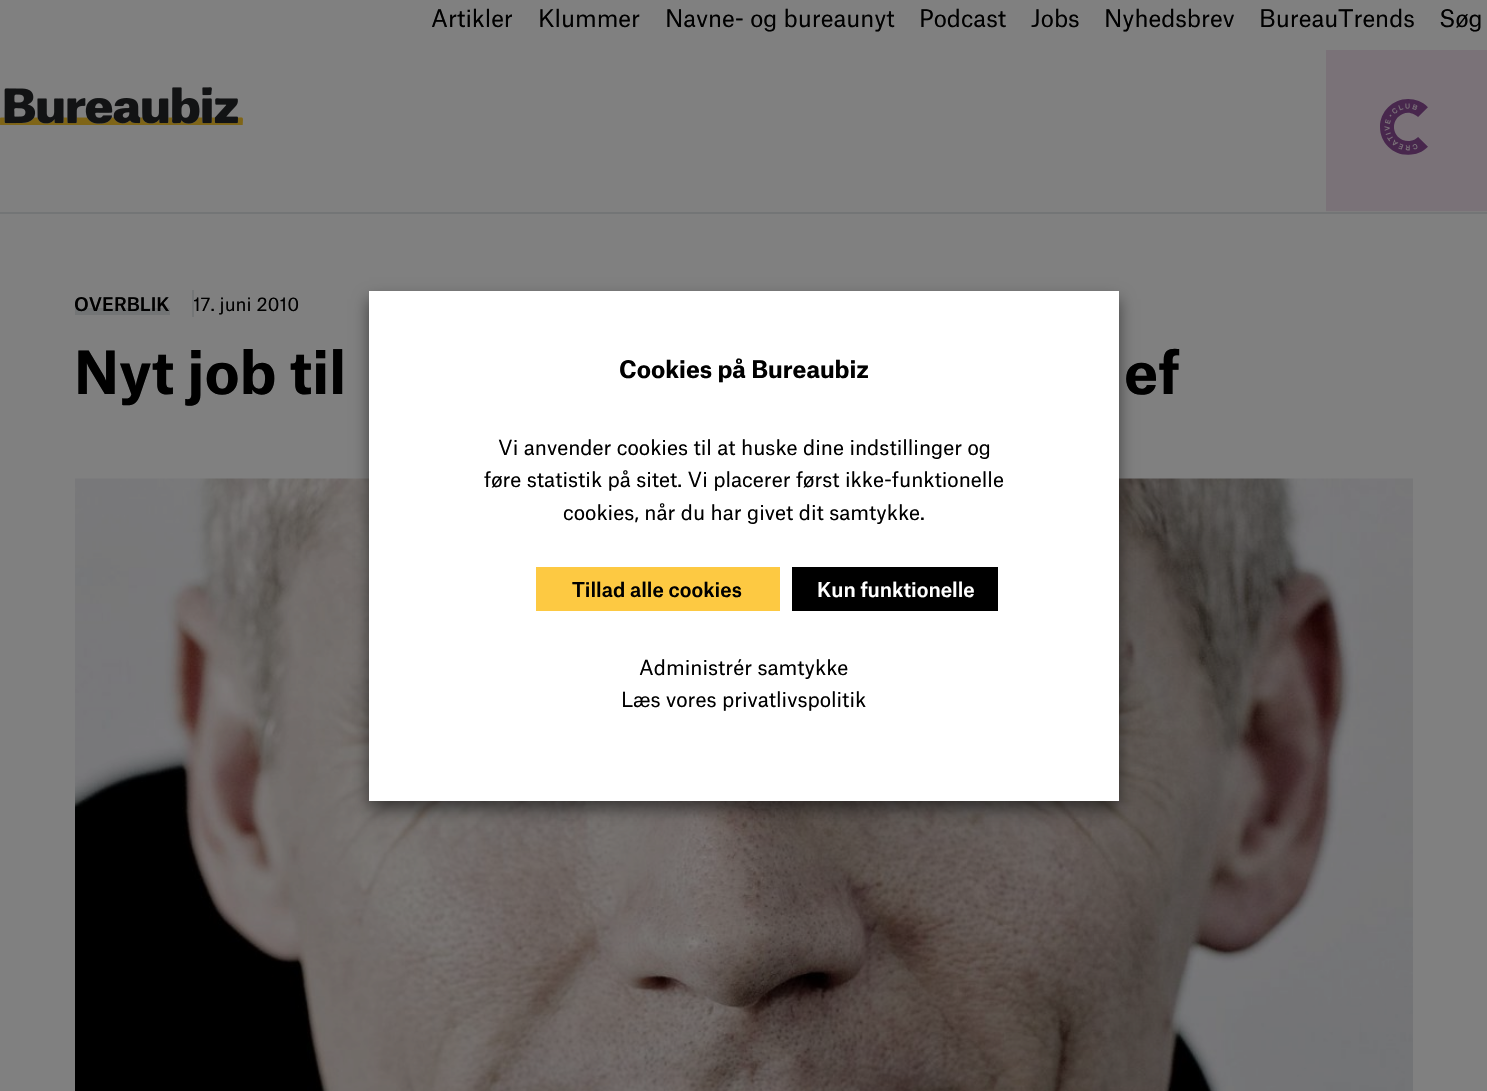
void draw(SkCanvas* canvas) {
  SkPaint paint;
  paint.setAntiAlias(true);
  auto face = [&](const char* family, int weight, float size, bool italic = false) {
    SkFontStyle style(weight, SkFontStyle::kNormal_Width,
      italic ? SkFontStyle::kItalic_Slant : SkFontStyle::kUpright_Slant);
    SkFont result(fontMgr->matchFamilyStyle(family, style), size);
    result.setSubpixel(true);
    return result;
  };
  auto paste = [&](const char* path, float x, float y, float w, float h) {
    auto image = SkImages::DeferredFromEncodedData(SkData::MakeFromFileName(path));
    canvas->drawImageRect(image, SkRect::MakeXYWH(x, y, w, h), SkSamplingOptions());
  };
  canvas->clear(0xff808080);
  paint.setColor(0xff737576);
  canvas->drawRect(SkRect::MakeXYWH(0, 212, 1487, 2), paint);
  paste("img/1.png", 1326, 50, 161, 162);
  paste("img/2.png", 0, 87, 243, 38);
  canvas->drawRect(SkRect::MakeXYWH(75, 308, 95, 7), paint);
  canvas->drawRect(SkRect::MakeXYWH(192, 290, 2, 27), paint);
  paste("img/3.png", 75, 478, 1338, 613);
  paint.setColor(0x80000000);
  paint.setMaskFilter(SkMaskFilter::MakeBlur(kNormal_SkBlurStyle, 7.5f));
  canvas->drawRect(SkRect::MakeXYWH(369, 299, 750, 510), paint);
  paint.setMaskFilter(nullptr);
  {
    const struct { float x, y, w, h; SkColor color; } items[] = {
      {369, 291, 750, 510, 0xffffffff},
      {536, 567, 244, 44, 0xfffdc942},
      {792, 567, 206, 44, 0xff000000},
    };
    for (auto [x, y, w, h, color] : items) {
      paint.setColor(color);
      canvas->drawRect(SkRect::MakeXYWH(x, y, w, h), paint);
    }
  }
  auto f0 = face("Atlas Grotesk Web", 400, 23.1f);
  {
    const struct { const char* s; float x, y; } items[] = {
      {"Artikler", 431, 27},
      {"Klummer", 538, 27},
      {"Navne- og bureaunyt", 665, 27},
      {"Podcast", 919, 27},
      {"Jobs", 1031, 27},
      {"Nyhedsbrev", 1104, 27},
      {"BureauTrends", 1259, 27},
      {"Søg", 1439, 27},
    };
    for (auto [s, x, y] : items) {
      canvas->drawString(s, x, y, f0, paint);
    }
  }
  auto f1 = face("Atlas Grotesk Web", 500, 18);
  canvas->drawString("OVERBLIK", 74, 311, f1, paint);
  auto f2 = face("Atlas Grotesk Web", 400, 18);
  canvas->drawString("17. juni 2010", 193, 311, f2, paint);
  auto f3 = face("Atlas Grotesk Web", 700, 57);
  canvas->drawString("Nyt job til", 74, 394, f3, paint);
  canvas->drawString("ef", 1124, 394, f3, paint);
  auto f4 = face("Atlas Grotesk Web", 700, 23.1f);
  canvas->drawString("Cookies på Bureaubiz", 619, 378, f4, paint);
  auto f5 = face("Atlas Grotesk Web", 400, 20);
  {
    const struct { const char* s; float x, y; } items[] = {
      {"Vi anvender cookies til at huske dine indstillinger og", 498, 455},
      {"føre statistik på sitet. Vi placerer først ikke-funktionelle", 484, 487},
      {"cookies, når du har givet dit samtykke.", 563, 520},
    };
    for (auto [s, x, y] : items) {
      canvas->drawString(s, x, y, f5, paint);
    }
  }
  auto f6 = face("Atlas Grotesk Web", 500, 19.5f);
  canvas->drawString("Tillad alle cookies", 572, 597, f6, paint);
  paint.setColor(0xffffffff);
  canvas->drawString("Kun funktionelle", 817, 597, f6, paint);
  paint.setColor(0xff000000);
  canvas->drawString("Administrér samtykke", 639, 675, f5, paint);
  canvas->drawString("Læs vores privatlivspolitik", 621, 707, f5, paint);
}
